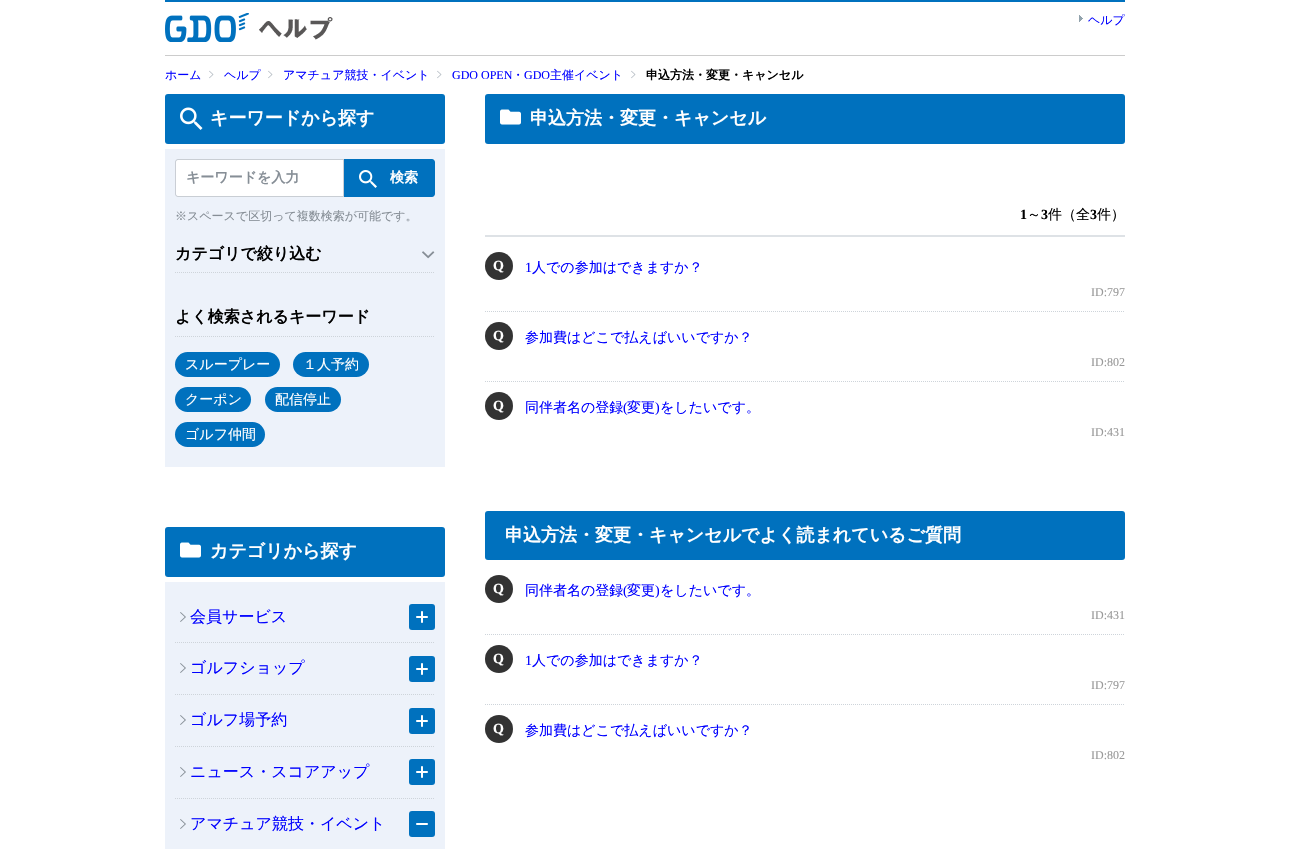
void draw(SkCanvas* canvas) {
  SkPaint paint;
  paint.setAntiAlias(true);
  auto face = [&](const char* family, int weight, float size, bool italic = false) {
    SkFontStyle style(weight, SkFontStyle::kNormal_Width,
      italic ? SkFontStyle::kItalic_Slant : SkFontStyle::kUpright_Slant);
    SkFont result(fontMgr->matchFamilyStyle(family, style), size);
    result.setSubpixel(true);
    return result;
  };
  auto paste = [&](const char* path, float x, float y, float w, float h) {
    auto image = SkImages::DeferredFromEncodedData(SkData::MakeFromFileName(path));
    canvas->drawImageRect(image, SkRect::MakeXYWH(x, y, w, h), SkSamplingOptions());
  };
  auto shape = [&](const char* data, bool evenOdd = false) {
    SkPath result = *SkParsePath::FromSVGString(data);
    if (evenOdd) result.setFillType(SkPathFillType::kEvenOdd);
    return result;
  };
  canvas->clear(0xffffffff);
  paint.setColor(0xff0071be);
  canvas->drawRect(SkRect::MakeXYWH(165, 0, 960, 2), paint);
  paint.setColor(0xffcccccc);
  canvas->drawRect(SkRect::MakeXYWH(165, 55, 960, 1), paint);
  paste("img/1.png", 165, 13, 84, 29);
  paste("img/2.png", 259, 17, 74, 23);
  paste("img/3.png", 1079, 15, 4, 7);
  paste("img/4.png", 209, 70, 5, 9);
  paste("img/4.png", 268, 70, 5, 9);
  paste("img/4.png", 437, 70, 5, 9);
  paste("img/4.png", 631, 70, 5, 9);
  paint.setColor(0xff0071be);
  canvas->drawRoundRect(SkRect::MakeXYWH(165, 94, 280, 50), 3, 3, paint);
  paste("img/5.png", 180, 107, 23, 23);
  paint.setColor(0xffedf2fa);
  canvas->drawRect(SkRect::MakeXYWH(165, 149, 280, 318), paint);
  paint.setColor(0xffffffff);
  canvas->drawPath(shape("M178 160H343V196H178C177 196 176 195 176 194V162C176 161 177 160 178 160Z"), paint);
  paint.setStroke(true);
  paint.setStrokeWidth(1);
  paint.setColor(0x26000000);
  canvas->drawPath(shape("M178 159.5H343.5V196.5H178C176.5 196.5 175.5 195.5 175.5 194V162C175.5 160.5 176.5 159.5 178 159.5Z"), paint);
  paint.setStroke(false);
  paint.setColor(0xff0071be);
  canvas->drawPath(shape("M344 159H432C433.5 159 435 160.5 435 162V194C435 195.5 433.5 197 432 197H344Z"), paint);
  paste("img/6.png", 359, 170, 18, 18);
  paint.setStroke(true);
  paint.setColor(0xffced4da);
  paint.setPathEffect(SkDashPathEffect::Make({{1, 1}}, 0));
  canvas->drawPath(shape("M175 272.5H435"), paint);
  paint.setPathEffect(nullptr);
  paste("img/7.png", 422, 251, 13, 8);
  paint.setPathEffect(SkDashPathEffect::Make({{1, 1}}, 0));
  canvas->drawPath(shape("M175 336.5H435"), paint);
  paint.setPathEffect(nullptr);
  paint.setStroke(false);
  paint.setColor(0xff0071be);
  canvas->drawRoundRect(SkRect::MakeXYWH(175, 352, 105, 25), 12.5f, 12.5f, paint);
  canvas->drawRoundRect(SkRect::MakeXYWH(293, 352, 76, 25), 12.5f, 12.5f, paint);
  canvas->drawRoundRect(SkRect::MakeXYWH(175, 387, 76, 25), 12.5f, 12.5f, paint);
  canvas->drawRoundRect(SkRect::MakeXYWH(265, 387, 76, 25), 12.5f, 12.5f, paint);
  canvas->drawRoundRect(SkRect::MakeXYWH(175, 422, 90, 25), 12.5f, 12.5f, paint);
  canvas->drawRoundRect(SkRect::MakeXYWH(165, 527, 280, 50), 3, 3, paint);
  paste("img/8.png", 180, 542, 21, 16);
  paint.setColor(0xffedf2fa);
  canvas->drawRect(SkRect::MakeXYWH(165, 582, 280, 267), paint);
  paste("img/9.png", 180, 612, 6, 10);
  paint.setColor(0xff0071be);
  canvas->drawRoundRect(SkRect::MakeXYWH(409, 604, 26, 26), 3, 3, paint);
  paste("img/10.png", 416, 611, 12, 12);
  paint.setStroke(true);
  paint.setColor(0xffced4da);
  paint.setPathEffect(SkDashPathEffect::Make({{1, 1}}, 0));
  canvas->drawPath(shape("M175 642.5H435"), paint);
  paint.setPathEffect(nullptr);
  paste("img/9.png", 180, 663, 6, 10);
  paint.setStroke(false);
  paint.setColor(0xff0071be);
  canvas->drawRoundRect(SkRect::MakeXYWH(409, 656, 26, 26), 3, 3, paint);
  paste("img/10.png", 416, 663, 12, 12);
  paint.setStroke(true);
  paint.setColor(0xffced4da);
  paint.setPathEffect(SkDashPathEffect::Make({{1, 1}}, 0));
  canvas->drawPath(shape("M175 694.5H435"), paint);
  paint.setPathEffect(nullptr);
  paste("img/9.png", 180, 715, 6, 10);
  paint.setStroke(false);
  paint.setColor(0xff0071be);
  canvas->drawRoundRect(SkRect::MakeXYWH(409, 708, 26, 26), 3, 3, paint);
  paste("img/10.png", 416, 715, 12, 12);
  paint.setStroke(true);
  paint.setColor(0xffced4da);
  paint.setPathEffect(SkDashPathEffect::Make({{1, 1}}, 0));
  canvas->drawPath(shape("M175 746.5H435"), paint);
  paint.setPathEffect(nullptr);
  paste("img/9.png", 180, 767, 6, 10);
  paint.setStroke(false);
  paint.setColor(0xff0071be);
  canvas->drawRoundRect(SkRect::MakeXYWH(409, 759, 26, 26), 3, 3, paint);
  paste("img/10.png", 416, 766, 12, 12);
  paint.setStroke(true);
  paint.setColor(0xffced4da);
  paint.setPathEffect(SkDashPathEffect::Make({{1, 1}}, 0));
  canvas->drawPath(shape("M175 798.5H435"), paint);
  paint.setPathEffect(nullptr);
  paste("img/9.png", 180, 819, 6, 10);
  paint.setStroke(false);
  paint.setColor(0xff0071be);
  canvas->drawRoundRect(SkRect::MakeXYWH(409, 811, 26, 26), 3, 3, paint);
  paste("img/11.png", 416, 823, 12, 2);
  canvas->drawRoundRect(SkRect::MakeXYWH(485, 94, 640, 50), 3, 3, paint);
  paste("img/8.png", 500, 109, 21, 16);
  paint.setColor(0xffdee2e6);
  canvas->drawRect(SkRect::MakeXYWH(485, 235, 640, 2), paint);
  paint.setColor(0xff333333);
  canvas->drawCircle(499, 266, 14, paint);
  paint.setStroke(true);
  paint.setColor(0xffced4da);
  paint.setPathEffect(SkDashPathEffect::Make({{1, 1}}, 0));
  canvas->drawPath(shape("M485 311.5H1125"), paint);
  paint.setPathEffect(nullptr);
  paint.setStroke(false);
  paint.setColor(0xff333333);
  canvas->drawCircle(499, 336, 14, paint);
  paint.setStroke(true);
  paint.setColor(0xffced4da);
  paint.setPathEffect(SkDashPathEffect::Make({{1, 1}}, 0));
  canvas->drawPath(shape("M485 381.5H1125"), paint);
  paint.setPathEffect(nullptr);
  paint.setStroke(false);
  paint.setColor(0xff333333);
  canvas->drawCircle(499, 406, 14, paint);
  paint.setColor(0xff0071be);
  canvas->drawRoundRect(SkRect::MakeXYWH(485, 511, 640, 49), 3, 3, paint);
  paint.setColor(0xff333333);
  canvas->drawCircle(499, 589, 14, paint);
  paint.setStroke(true);
  paint.setColor(0xffced4da);
  paint.setPathEffect(SkDashPathEffect::Make({{1, 1}}, 0));
  canvas->drawPath(shape("M485 634.5H1125"), paint);
  paint.setPathEffect(nullptr);
  paint.setStroke(false);
  paint.setColor(0xff333333);
  canvas->drawCircle(499, 659, 14, paint);
  paint.setStroke(true);
  paint.setColor(0xffced4da);
  paint.setPathEffect(SkDashPathEffect::Make({{1, 1}}, 0));
  canvas->drawPath(shape("M485 704.5H1125"), paint);
  paint.setPathEffect(nullptr);
  paint.setStroke(false);
  paint.setColor(0xff333333);
  canvas->drawCircle(499, 729, 14, paint);
  auto f0 = face("WenQuanYi Zen Hei", 500, 12);
  paint.setColor(0xff0000ff);
  {
    const struct { const char* s; float x, y; } items[] = {
      {"ヘルプ", 1088, 24},
      {"ホーム", 165, 79},
      {"ヘルプ", 224, 79},
      {"アマチュア競技・イベント", 283, 79},
    };
    for (auto [s, x, y] : items) {
      canvas->drawString(s, x, y, f0, paint);
    }
  }
  auto f1 = face("Liberation Serif", 400, 12);
  canvas->drawString("GDO OPEN", 452, 79, f1, paint);
  canvas->drawString("・", 512, 79, f0, paint);
  canvas->drawString("GDO", 524, 79, f1, paint);
  canvas->drawString("主催イベント", 550, 79, f0, paint);
  auto f2 = face("WenQuanYi Zen Hei", 700, 12);
  paint.setColor(0xff000000);
  canvas->drawString("申込方法・変更・キャンセル", 646, 79, f2, paint);
  auto f3 = face("WenQuanYi Zen Hei", 700, 18);
  paint.setColor(0xffffffff);
  canvas->drawString("キーワードから探す", 210, 124, f3, paint);
  auto f4 = face("WenQuanYi Zen Hei", 700, 14);
  paint.setColor(0xff868e96);
  canvas->drawString("キーワードを入力", 186, 182, f4, paint);
  paint.setColor(0xffffffff);
  canvas->drawString("検索", 390, 182, f4, paint);
  paint.setColor(0xff868e96);
  canvas->drawString("※スペースで区切って複数検索が可能です。", 175, 220, f0, paint);
  auto f5 = face("WenQuanYi Zen Hei", 700, 16);
  paint.setColor(0xff000000);
  canvas->drawString("カテゴリで絞り込む", 175, 259, f5, paint);
  canvas->drawString("よく検索されるキーワード", 175, 322, f5, paint);
  auto f6 = face("WenQuanYi Zen Hei", 500, 14);
  paint.setColor(0xffffffff);
  {
    const struct { const char* s; float x, y; } items[] = {
      {"スループレー", 185, 369},
      {"１人予約", 303, 369},
      {"クーポン", 185, 404},
      {"配信停止", 275, 404},
      {"ゴルフ仲間", 185, 439},
    };
    for (auto [s, x, y] : items) {
      canvas->drawString(s, x, y, f6, paint);
    }
  }
  canvas->drawString("カテゴリから探す", 210, 557, f3, paint);
  auto f7 = face("WenQuanYi Zen Hei", 500, 16);
  paint.setColor(0xff0000ff);
  {
    const struct { const char* s; float x, y; } items[] = {
      {"会員サービス", 190, 622},
      {"ゴルフショップ", 190, 673},
      {"ゴルフ場予約", 190, 725},
      {"ニュース・スコアアップ", 190, 777},
      {"アマチュア競技・イベント", 190, 829},
    };
    for (auto [s, x, y] : items) {
      canvas->drawString(s, x, y, f7, paint);
    }
  }
  paint.setColor(0xffffffff);
  canvas->drawString("申込方法・変更・キャンセル", 530, 124, f3, paint);
  auto f8 = face("Liberation Serif", 700, 14);
  paint.setColor(0xff000000);
  canvas->drawString("1", 1020, 219, f8, paint);
  canvas->drawString("～", 1027, 219, f6, paint);
  canvas->drawString("3", 1041, 219, f8, paint);
  canvas->drawString("件（全", 1048, 219, f6, paint);
  canvas->drawString("3", 1090, 219, f8, paint);
  canvas->drawString("件）", 1097, 219, f6, paint);
  paint.setColor(0xffffffff);
  canvas->drawString("Q", 493, 270, f8, paint);
  auto f9 = face("Liberation Serif", 400, 14);
  paint.setColor(0xff0000ff);
  canvas->drawString("1", 525, 272, f9, paint);
  canvas->drawString("人での参加はできますか？", 532, 272, f6, paint);
  paint.setColor(0xff999999);
  canvas->drawString("ID:797", 1091, 296, f1, paint);
  paint.setColor(0xffffffff);
  canvas->drawString("Q", 493, 340, f8, paint);
  paint.setColor(0xff0000ff);
  canvas->drawString("参加費はどこで払えばいいですか？", 525, 342, f6, paint);
  paint.setColor(0xff999999);
  canvas->drawString("ID:802", 1091, 366, f1, paint);
  paint.setColor(0xffffffff);
  canvas->drawString("Q", 493, 410, f8, paint);
  paint.setColor(0xff0000ff);
  canvas->drawString("同伴者名の登録", 525, 412, f6, paint);
  canvas->drawString("(", 623, 412, f9, paint);
  canvas->drawString("変更", 627, 412, f6, paint);
  canvas->drawString(")", 655, 412, f9, paint);
  canvas->drawString("をしたいです。", 660, 412, f6, paint);
  paint.setColor(0xff999999);
  canvas->drawString("ID:431", 1091, 436, f1, paint);
  paint.setColor(0xffffffff);
  canvas->drawString("申込方法・変更・キャンセルでよく読まれているご質問", 505, 541, f3, paint);
  canvas->drawString("Q", 493, 593, f8, paint);
  paint.setColor(0xff0000ff);
  canvas->drawString("同伴者名の登録", 525, 595, f6, paint);
  canvas->drawString("(", 623, 595, f9, paint);
  canvas->drawString("変更", 627, 595, f6, paint);
  canvas->drawString(")", 655, 595, f9, paint);
  canvas->drawString("をしたいです。", 660, 595, f6, paint);
  paint.setColor(0xff999999);
  canvas->drawString("ID:431", 1091, 619, f1, paint);
  paint.setColor(0xffffffff);
  canvas->drawString("Q", 493, 663, f8, paint);
  paint.setColor(0xff0000ff);
  canvas->drawString("1", 525, 665, f9, paint);
  canvas->drawString("人での参加はできますか？", 532, 665, f6, paint);
  paint.setColor(0xff999999);
  canvas->drawString("ID:797", 1091, 689, f1, paint);
  paint.setColor(0xffffffff);
  canvas->drawString("Q", 493, 733, f8, paint);
  paint.setColor(0xff0000ff);
  canvas->drawString("参加費はどこで払えばいいですか？", 525, 735, f6, paint);
  paint.setColor(0xff999999);
  canvas->drawString("ID:802", 1091, 759, f1, paint);
}
